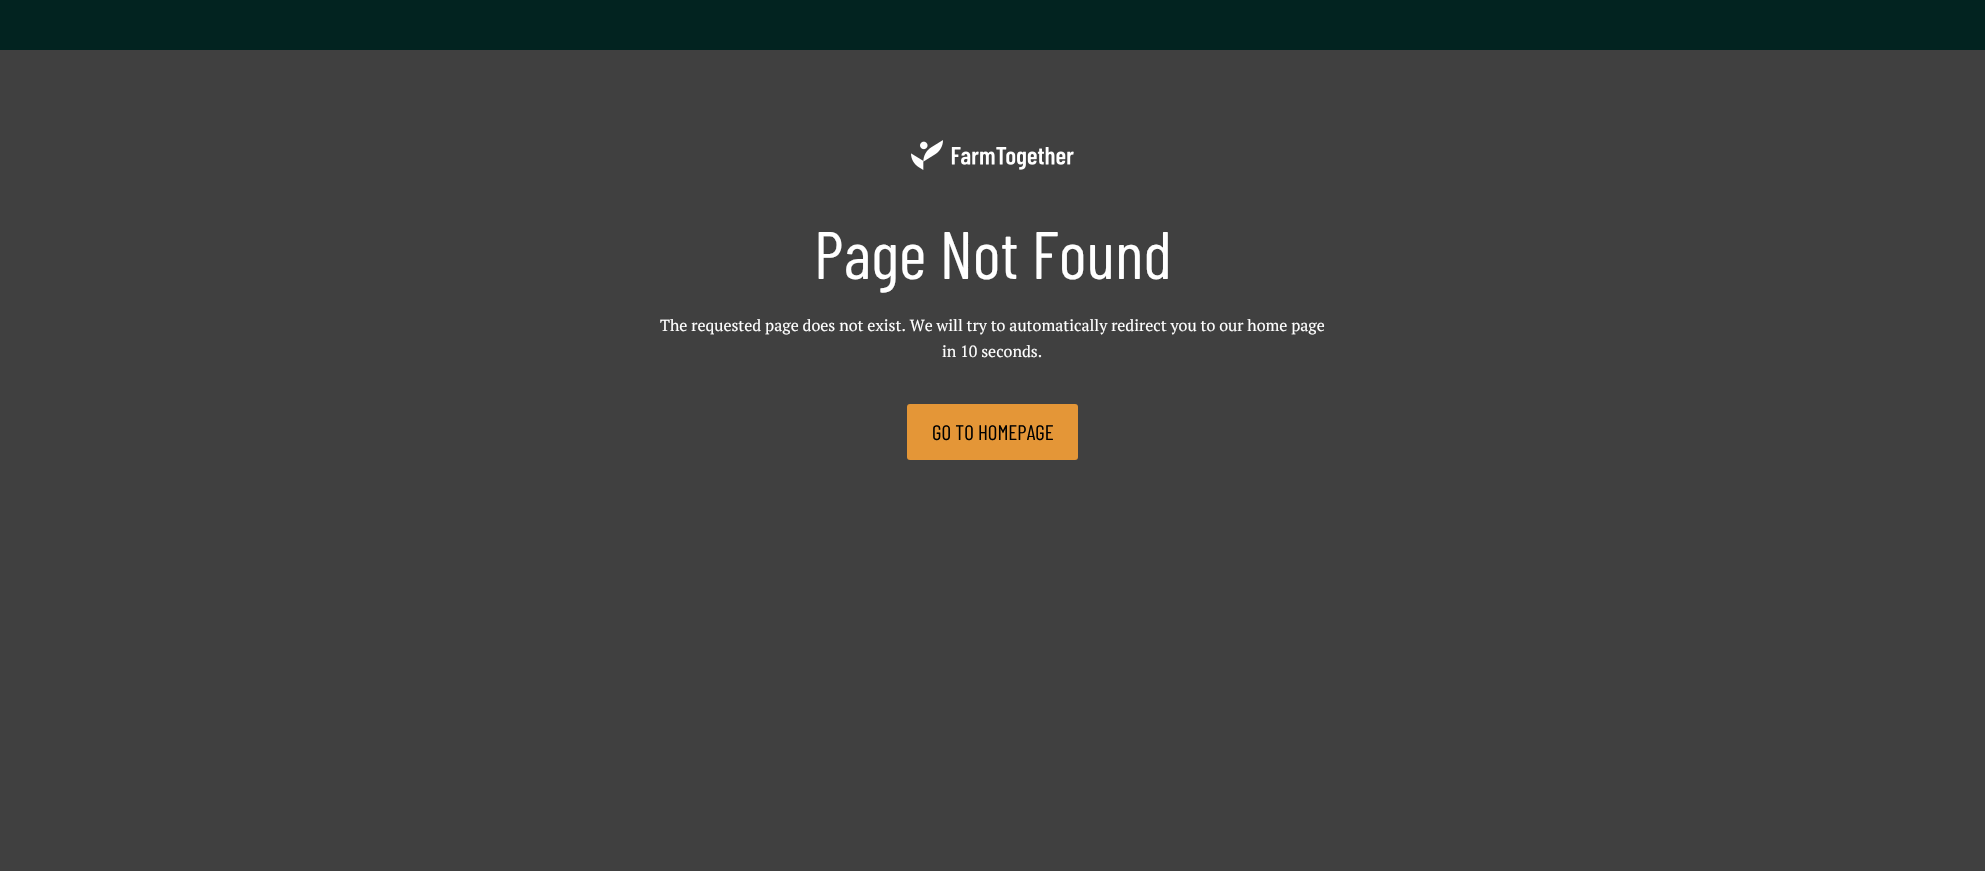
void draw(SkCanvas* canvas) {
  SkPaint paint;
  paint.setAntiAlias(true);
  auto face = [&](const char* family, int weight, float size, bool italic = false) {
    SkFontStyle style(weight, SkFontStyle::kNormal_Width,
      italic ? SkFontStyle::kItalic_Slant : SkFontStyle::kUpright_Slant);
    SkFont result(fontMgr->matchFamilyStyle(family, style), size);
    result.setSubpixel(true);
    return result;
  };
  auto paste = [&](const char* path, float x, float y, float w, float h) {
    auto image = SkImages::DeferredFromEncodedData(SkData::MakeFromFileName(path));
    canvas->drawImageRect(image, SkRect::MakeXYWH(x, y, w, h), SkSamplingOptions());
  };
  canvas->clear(0xff404040);
  paint.setColor(0xff022320);
  canvas->drawRect(SkRect::MakeXYWH(0, 0, 1985, 50), paint);
  paste("img/1.png", 911, 140, 163, 30);
  paint.setColor(0xffe49637);
  canvas->drawRoundRect(SkRect::MakeXYWH(907, 404, 171, 56), 3, 3, paint);
  auto f0 = face("Barlow Condensed", 400, 67);
  paint.setColor(0xffffffff);
  canvas->drawString("Page Not Found", 814, 279, f0, paint);
  auto f1 = face("PT Serif", 400, 16);
  canvas->drawString("The requested page does not exist. We will try to automatically redirect you to our home page", 660, 331, f1, paint);
  canvas->drawString("in 10 seconds.", 942, 357, f1, paint);
  auto f2 = face("Barlow Condensed", 400, 21);
  paint.setColor(0xff000000);
  canvas->drawString("GO TO HOMEPAGE", 932, 440, f2, paint);
}
